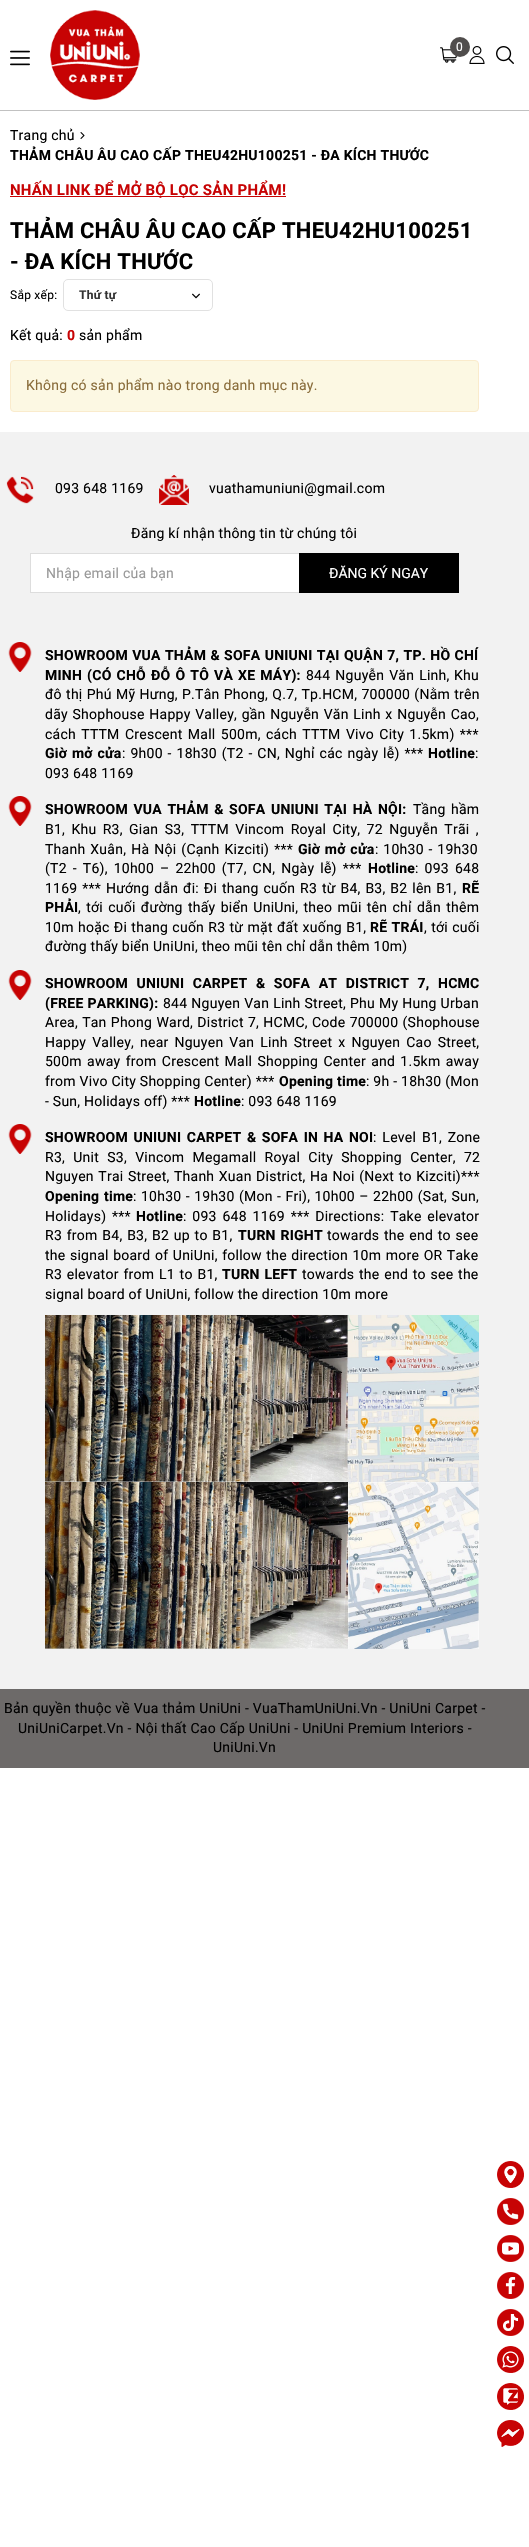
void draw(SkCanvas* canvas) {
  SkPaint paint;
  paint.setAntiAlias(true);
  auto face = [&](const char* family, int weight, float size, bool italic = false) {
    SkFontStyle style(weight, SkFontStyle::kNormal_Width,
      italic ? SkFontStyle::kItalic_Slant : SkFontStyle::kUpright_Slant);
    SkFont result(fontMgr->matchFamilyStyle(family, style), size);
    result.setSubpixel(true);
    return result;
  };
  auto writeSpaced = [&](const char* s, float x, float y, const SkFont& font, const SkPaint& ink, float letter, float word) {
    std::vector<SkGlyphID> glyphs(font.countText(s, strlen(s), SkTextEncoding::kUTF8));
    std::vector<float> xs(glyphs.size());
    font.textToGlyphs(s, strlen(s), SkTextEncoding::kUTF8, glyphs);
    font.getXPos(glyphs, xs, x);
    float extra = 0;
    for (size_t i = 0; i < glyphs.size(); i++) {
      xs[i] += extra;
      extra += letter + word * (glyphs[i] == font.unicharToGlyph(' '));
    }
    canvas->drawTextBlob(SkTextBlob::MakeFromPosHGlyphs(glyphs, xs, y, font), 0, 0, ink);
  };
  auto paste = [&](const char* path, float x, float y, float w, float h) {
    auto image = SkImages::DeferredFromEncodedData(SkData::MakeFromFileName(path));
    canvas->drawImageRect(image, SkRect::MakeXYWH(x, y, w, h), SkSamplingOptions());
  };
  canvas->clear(0xffffffff);
  paint.setColor(0xffc1c1c1);
  canvas->drawRect(SkRect::MakeXYWH(0, 110, 529, 1), paint);
  paste("img/1.png", 10, 50, 20, 16);
  paste("img/2.png", 50, 10, 90, 90);
  paste("img/3.png", 440, 47, 17, 16);
  paste("img/4.png", 469, 46, 16, 18);
  paint.setColor(0xff504d4c);
  canvas->drawCircle(460, 47, 10, paint);
  paste("img/5.png", 496, 46, 18, 18);
  paste("img/6.png", 80, 132, 5, 7);
  paint.setColor(0xffc70304);
  canvas->drawRect(SkRect::MakeXYWH(10, 196, 276, 1), paint);
  paint.setStroke(true);
  paint.setStrokeWidth(1);
  paint.setColor(0xffe1e1e1);
  canvas->drawRoundRect(SkRect::MakeXYWH(63.5f, 279.5f, 149, 31), 4.5f, 4.5f, paint);
  paste("img/7.png", 192, 293, 8, 6);
  paint.setStroke(false);
  paint.setColor(0xfffcf8e3);
  canvas->drawRoundRect(SkRect::MakeXYWH(10.5f, 360.5f, 468, 51), 3.5f, 3.5f, paint);
  paint.setStroke(true);
  paint.setColor(0xfffaebcc);
  canvas->drawRoundRect(SkRect::MakeXYWH(10.5f, 360.5f, 468, 51), 3.5f, 3.5f, paint);
  paint.setStroke(false);
  paint.setColor(0xfff2f2f2);
  canvas->drawRect(SkRect::MakeXYWH(0, 432, 529, 1257), paint);
  paste("img/8.png", 6, 476, 28, 28);
  paste("img/9.png", 159, 475, 30, 30);
  paint.setColor(0xffffffff);
  canvas->drawRect(SkRect::MakeXYWH(31, 554, 268, 38), paint);
  paint.setStroke(true);
  paint.setColor(0xffdddddd);
  canvas->drawRect(SkRect::MakeXYWH(30.5f, 553.5f, 428, 39), paint);
  paint.setStroke(false);
  paint.setColor(0xff000000);
  canvas->drawRect(SkRect::MakeXYWH(299, 553, 160, 40), paint);
  paste("img/10.png", 8, 642, 24, 30);
  paste("img/10.png", 8, 796, 24, 30);
  paste("img/10.png", 8, 970, 24, 30);
  paste("img/10.png", 8, 1124, 24, 30);
  paste("img/11.png", 45, 1315, 434, 167);
  paste("img/12.png", 45, 1482, 434, 167);
  paint.setColor(0xff6d6a69);
  canvas->drawRect(SkRect::MakeXYWH(0, 1689, 529, 79), paint);
  paste("img/13.png", 497, 2161, 27, 27);
  paste("img/14.png", 497, 2198, 27, 27);
  paste("img/15.png", 497, 2235, 27, 27);
  paste("img/16.png", 497, 2272, 27, 27);
  paste("img/17.png", 497, 2309, 27, 27);
  paste("img/18.png", 497, 2346, 27, 27);
  paste("img/19.png", 497, 2383, 27, 27);
  paste("img/20.png", 497, 2420, 27, 27);
  auto f0 = face("Roboto", 400, 12);
  paint.setColor(0xffffffff);
  writeSpaced("0", 456, 51, f0, paint, 0.25f, 0);
  auto f1 = face("Roboto", 400, 14);
  paint.setColor(0xff000000);
  writeSpaced("Trang chủ", 10, 140, f1, paint, 0.25f, 0);
  auto f2 = face("Roboto", 700, 14);
  writeSpaced("THẢM CHÂU ÂU CAO CẤP THEU42HU100251 - ĐA KÍCH THƯỚC", 10, 160, f2, paint, 0.25f, 0);
  auto f3 = face("Roboto", 700, 15);
  paint.setColor(0xffc70304);
  writeSpaced("NHẤN LINK ĐỂ MỞ BỘ LỌC SẢN PHẨM!", 10, 195, f3, paint, 0.25f, 0);
  auto f4 = face("Roboto", 700, 22);
  paint.setColor(0xff000000);
  writeSpaced("THẢM CHÂU ÂU CAO CẤP THEU42HU100251", 10, 238, f4, paint, 0.25f, 0);
  writeSpaced("- ĐA KÍCH THƯỚC", 10, 269, f4, paint, 0.25f, 0);
  writeSpaced("Sắp xếp:", 10, 299, f0, paint, 0.25f, 0);
  auto f5 = face("Roboto", 700, 12);
  paint.setColor(0xff333333);
  writeSpaced("Thứ tự", 79, 299, f5, paint, 0.25f, 0);
  paint.setColor(0xff000000);
  writeSpaced("Kết quả:", 10, 340, f1, paint, 0.25f, 0);
  paint.setColor(0xffc70304);
  writeSpaced("0", 67, 340, f2, paint, 0.25f, 0);
  paint.setColor(0xff000000);
  writeSpaced("sản phẩm", 79, 340, f1, paint, 0.25f, 0);
  paint.setColor(0xff8a6d3b);
  writeSpaced("Không có sản phẩm nào trong danh mục này.", 26, 390, f1, paint, 0.25f, 0);
  paint.setColor(0xff000000);
  {
    const struct { const char* s; float x, y; } items[] = {
      {"093 648 1169", 55, 493},
      {"vuathamuniuni@gmail.com", 209, 493},
      {"Đăng kí nhận thông tin từ chúng tôi", 131, 538},
    };
    for (auto [s, x, y] : items) {
      writeSpaced(s, x, y, f1, paint, 0.25f, 0);
    }
  }
  paint.setColor(0xff999999);
  writeSpaced("Nhập email của bạn", 46, 578, f1, paint, 0.25f, 0);
  paint.setColor(0xffffffff);
  canvas->drawString("ĐĂNG KÝ NGAY", 329, 578, f1, paint);
  paint.setColor(0xff000000);
  writeSpaced("SHOWROOM VUA THẢM & SOFA UNIUNI TẠI QUẬN 7, TP. HỒ CHÍ", 45, 660, f2, paint, 0.25f, 0.5f);
  writeSpaced("MINH (CÓ CHỖ ĐỖ Ô TÔ VÀ XE MÁY):", 45, 680, f2, paint, 0.25f, 1.25f);
  writeSpaced("844 Nguyễn Văn Linh,", 306, 680, f1, paint, 0.25f, 1.25f);
  writeSpaced("Khu", 454, 680, f1, paint, 0.25f, 0);
  writeSpaced("đô thị Phú Mỹ Hưng, P.Tân Phong, Q.7, Tp.HCM, 700000 (Nằm trên", 45, 699, f1, paint, 0.25f, 0.5f);
  writeSpaced("dãy Shophouse Happy Valley, gần Nguyễn Văn Linh x Nguyễn Cao,", 45, 719, f1, paint, 0.25f, 0.9f);
  writeSpaced("cách TTTM Crescent Mall 500m, cách TTTM Vivo City 1.5km) ***", 45, 739, f1, paint, 0.25f, 1.6f);
  writeSpaced("Giờ mở cửa", 45, 758, f2, paint, 0.25f, 1.1f);
  writeSpaced(": 9h00 - 18h30 (T2 - CN, Nghỉ các ngày lễ) ***", 122, 758, f1, paint, 0.25f, 1.1f);
  writeSpaced("Hotline", 428, 758, f2, paint, 0.25f, 0);
  writeSpaced(":", 475, 758, f1, paint, 0.25f, 0);
  writeSpaced("093 648 1169", 45, 778, f1, paint, 0.25f, 0);
  writeSpaced("SHOWROOM VUA THẢM & SOFA UNIUNI TẠI HÀ NỘI:", 45, 814, f2, paint, 0.25f, 1.75f);
  writeSpaced("Tầng hầm", 413, 814, f1, paint, 0.25f, 1.75f);
  writeSpaced("B1, Khu R3, Gian S3, TTTM Vincom Royal City, 72 Nguyễn Trãi ,", 45, 834, f1, paint, 0.25f, 2.6f);
  writeSpaced("Thanh Xuân, Hà Nội (Cạnh Kizciti) ***", 45, 854, f1, paint, 0.25f, 1.25f);
  writeSpaced("Giờ mở cửa", 298, 854, f2, paint, 0.25f, 1);
  writeSpaced(": 10h30 - 19h30", 375, 854, f1, paint, 0.25f, 1);
  writeSpaced("(T2 - T6), 10h00 – 22h00 (T7, CN, Ngày lễ) ***", 45, 873, f1, paint, 0.25f, 2.25f);
  writeSpaced("Hotline", 368, 873, f2, paint, 0.25f, 0);
  writeSpaced(": 093 648", 415, 873, f1, paint, 0.25f, 2.25f);
  writeSpaced("1169 *** Hướng dẫn đi: Đi thang cuốn R3 từ B4, B3, B2 lên B1,", 45, 893, f1, paint, 0.25f, 1.1f);
  writeSpaced("RẼ", 462, 893, f2, paint, 0.25f, 0);
  writeSpaced("PHẢI", 45, 912, f2, paint, 0.25f, 0);
  writeSpaced(", tới cuối đường thấy biển UniUni, theo mũi tên chỉ dẫn thêm", 78, 912, f1, paint, 0.25f, 1.5f);
  writeSpaced("10m hoặc Đi thang cuốn R3 từ mặt đất xuống B1,", 45, 932, f1, paint, 0.25f, 0.5f);
  writeSpaced("RẼ TRÁI", 370, 932, f2, paint, 0.25f, 0.5f);
  writeSpaced(", tới cuối", 424, 932, f1, paint, 0.25f, 0.5f);
  writeSpaced("đường thấy biển UniUni, theo mũi tên chỉ dẫn thêm 10m)", 45, 951, f1, paint, 0.25f, 0);
  writeSpaced("SHOWROOM UNIUNI CARPET & SOFA AT DISTRICT 7, HCMC", 45, 988, f2, paint, 0.25f, 4.75f);
  writeSpaced("(FREE PARKING):", 45, 1008, f2, paint, 0.25f, 0.25f);
  writeSpaced("844 Nguyen Van Linh Street, Phu My Hung Urban", 163, 1008, f1, paint, 0.25f, 0.25f);
  writeSpaced("Area, Tan Phong Ward, District 7, HCMC, Code 700000 (Shophouse", 45, 1027, f1, paint, 0.25f, 0.5f);
  writeSpaced("Happy Valley, near Nguyen Van Linh Street x Nguyen Cao Street,", 45, 1047, f1, paint, 0.25f, 2.25f);
  writeSpaced("500m away from Crescent Mall Shopping Center and 1.5km away", 45, 1066, f1, paint, 0.25f, 1.5f);
  writeSpaced("from Vivo City Shopping Center) ***", 45, 1086, f1, paint, 0.25f, 0);
  writeSpaced("Opening time", 279, 1086, f2, paint, 0.25f, 0);
  writeSpaced(": 9h - 18h30 (Mon", 366, 1086, f1, paint, 0.25f, 0);
  writeSpaced("- Sun, Holidays off) ***", 45, 1106, f1, paint, 0.25f, 0);
  writeSpaced("Hotline", 194, 1106, f2, paint, 0.25f, 0);
  writeSpaced(": 093 648 1169", 241, 1106, f1, paint, 0.25f, 0);
  writeSpaced("SHOWROOM UNIUNI CARPET & SOFA IN HA NOI", 45, 1142, f2, paint, 0.25f, 1.75f);
  writeSpaced(": Level B1, Zone", 373, 1142, f1, paint, 0.25f, 2);
  writeSpaced("R3, Unit S3, Vincom Megamall Royal City Shopping Center, 72", 45, 1162, f1, paint, 0.25f, 4.5f);
  writeSpaced("Nguyen Trai Street, Thanh Xuan District, Ha Noi (Next to Kizciti)***", 45, 1181, f1, paint, 0.25f, 0.75f);
  writeSpaced("Opening time", 45, 1201, f2, paint, 0.25f, 1);
  writeSpaced(": 10h30 - 19h30 (Mon - Fri), 10h00 – 22h00 (Sat, Sun,", 133, 1201, f1, paint, 0.25f, 0.6f);
  writeSpaced("Holidays) ***", 45, 1221, f1, paint, 0.25f, 2);
  writeSpaced("Hotline", 136, 1221, f2, paint, 0.25f, 0);
  writeSpaced(": 093 648 1169 *** Directions: Take elevator", 183, 1221, f1, paint, 0.25f, 2);
  writeSpaced("R3 from B4, B3, B2 up to B1,", 45, 1240, f1, paint, 0.25f, 1);
  writeSpaced("TURN RIGHT", 238, 1240, f2, paint, 0.25f, 1);
  writeSpaced("towards the end to see", 327, 1240, f1, paint, 0.25f, 1);
  writeSpaced("the signal board of UniUni, follow the direction 10m more OR Take", 45, 1260, f1, paint, 0.25f, 0.75f);
  writeSpaced("R3 elevator from L1 to B1,", 45, 1279, f1, paint, 0.25f, 1);
  writeSpaced("TURN LEFT", 222, 1279, f2, paint, 0.25f, 1);
  writeSpaced("towards the end to see the", 302, 1279, f1, paint, 0.25f, 1);
  {
    const struct { const char* s; float x, y; } items[] = {
      {"signal board of UniUni, follow the direction 10m more", 45, 1299},
      {"Bản quyền thuộc về Vua thảm UniUni - VuaThamUniUni.Vn - UniUni Carpet -", 4, 1713},
      {"UniUniCarpet.Vn - Nội thất Cao Cấp UniUni - UniUni Premium Interiors -", 18, 1733},
      {"UniUni.Vn", 213, 1752},
    };
    for (auto [s, x, y] : items) {
      writeSpaced(s, x, y, f1, paint, 0.25f, 0);
    }
  }
}
